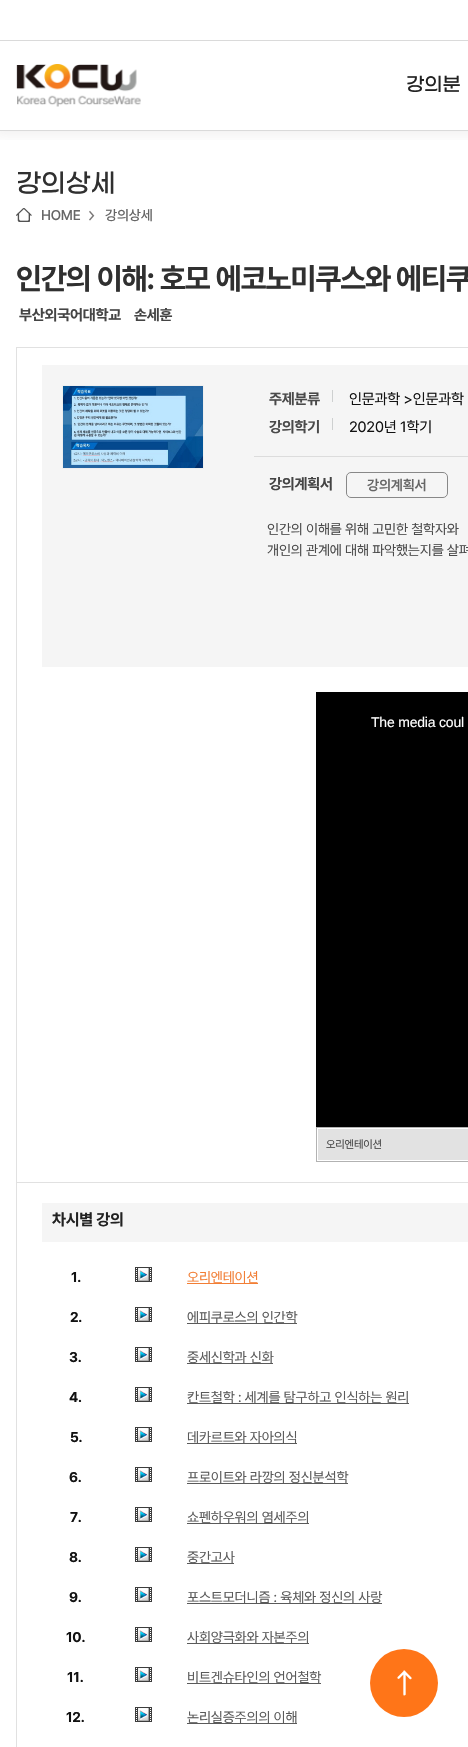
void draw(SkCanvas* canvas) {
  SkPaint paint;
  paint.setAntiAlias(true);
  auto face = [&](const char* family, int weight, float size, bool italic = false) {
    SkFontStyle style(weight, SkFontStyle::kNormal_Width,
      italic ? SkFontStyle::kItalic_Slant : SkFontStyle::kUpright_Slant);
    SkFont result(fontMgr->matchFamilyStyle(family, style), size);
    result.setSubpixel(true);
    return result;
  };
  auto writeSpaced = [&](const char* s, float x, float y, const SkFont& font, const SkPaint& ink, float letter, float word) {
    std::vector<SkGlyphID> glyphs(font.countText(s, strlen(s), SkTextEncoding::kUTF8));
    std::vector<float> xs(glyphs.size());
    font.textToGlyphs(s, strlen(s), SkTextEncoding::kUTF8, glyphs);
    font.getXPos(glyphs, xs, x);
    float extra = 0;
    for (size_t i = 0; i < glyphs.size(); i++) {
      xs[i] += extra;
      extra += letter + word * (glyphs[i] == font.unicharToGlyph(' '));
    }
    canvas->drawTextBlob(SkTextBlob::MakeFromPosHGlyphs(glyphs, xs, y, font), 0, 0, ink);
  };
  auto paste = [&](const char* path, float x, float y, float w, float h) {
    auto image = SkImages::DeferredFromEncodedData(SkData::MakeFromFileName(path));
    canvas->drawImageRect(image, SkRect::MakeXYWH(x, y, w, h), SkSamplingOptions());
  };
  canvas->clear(0xffffffff);
  canvas->save();
  canvas->clipRect(SkRect::MakeXYWH(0, 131, 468, 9));
  paint.setColor(0x1a716d69);
  paint.setMaskFilter(SkMaskFilter::MakeBlur(kNormal_SkBlurStyle, 6));
  canvas->drawRect(SkRect::MakeXYWH(-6, 1, 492, 134), paint);
  paint.setMaskFilter(nullptr);
  canvas->restore();
  paint.setColor(0xffdadada);
  canvas->drawRect(SkRect::MakeXYWH(0, 40, 468, 1), paint);
  paste("img/1.png", 16, 64, 125, 43);
  canvas->drawRect(SkRect::MakeXYWH(0, 130, 468, 1), paint);
  paste("img/2.png", 16, 208, 16, 14);
  paste("img/3.png", 89, 210, 6, 11);
  paint.setStroke(true);
  paint.setStrokeWidth(1);
  paint.setColor(0xffe1e1e1);
  canvas->drawRect(SkRect::MakeXYWH(16.5f, 347.5f, 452, 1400), paint);
  paint.setStroke(false);
  paint.setColor(0xfff5f5f5);
  canvas->drawRect(SkRect::MakeXYWH(42, 365, 426, 302), paint);
  paint.setStroke(true);
  paint.setColor(0xffefefef);
  canvas->drawRect(SkRect::MakeXYWH(62.5f, 385.5f, 141, 83), paint);
  paste("img/4.png", 63, 386, 140, 82);
  paint.setStroke(false);
  {
    const struct { float x, y, w, h; SkColor color; } items[] = {
      {254, 456, 214, 1, 0xffdcdcdc},
      {332, 390, 1, 12, 0xffced0d0},
      {332, 418, 1, 12, 0xffced0d0},
    };
    for (auto [x, y, w, h, color] : items) {
      paint.setColor(color);
      canvas->drawRect(SkRect::MakeXYWH(x, y, w, h), paint);
    }
  }
  paint.setStroke(true);
  paint.setColor(0xff888888);
  canvas->drawRoundRect(SkRect::MakeXYWH(346.5f, 472.5f, 101, 25), 4.5f, 4.5f, paint);
  paint.setStroke(false);
  paint.setColor(0xff000000);
  canvas->drawRect(SkRect::MakeXYWH(316, 692, 152, 435), paint);
  paste("img/5.png", 316, 1127, 152, 35);
  paint.setColor(0xffe1e1e1);
  canvas->drawRect(SkRect::MakeXYWH(17, 1182, 451, 1), paint);
  paint.setColor(0xfff5f5f5);
  canvas->drawRect(SkRect::MakeXYWH(42, 1203, 426, 39), paint);
  paste("img/6.png", 135, 1267, 17, 15);
  paint.setColor(0xfff27e35);
  canvas->drawRect(SkRect::MakeXYWH(187, 1283, 71, 1), paint);
  paste("img/6.png", 135, 1307, 17, 15);
  paint.setColor(0xff5a5a5a);
  canvas->drawRect(SkRect::MakeXYWH(187, 1323, 110, 1), paint);
  paste("img/6.png", 135, 1347, 17, 15);
  canvas->drawRect(SkRect::MakeXYWH(187, 1363, 86, 1), paint);
  paste("img/6.png", 135, 1387, 17, 15);
  canvas->drawRect(SkRect::MakeXYWH(187, 1403, 222, 1), paint);
  paste("img/6.png", 135, 1427, 17, 15);
  canvas->drawRect(SkRect::MakeXYWH(187, 1443, 110, 1), paint);
  paste("img/6.png", 135, 1467, 17, 15);
  canvas->drawRect(SkRect::MakeXYWH(187, 1483, 161, 1), paint);
  paste("img/6.png", 135, 1507, 17, 15);
  canvas->drawRect(SkRect::MakeXYWH(187, 1523, 122, 1), paint);
  paste("img/6.png", 135, 1547, 17, 15);
  canvas->drawRect(SkRect::MakeXYWH(187, 1563, 47, 1), paint);
  paste("img/6.png", 135, 1587, 17, 15);
  canvas->drawRect(SkRect::MakeXYWH(187, 1603, 195, 1), paint);
  paste("img/6.png", 135, 1627, 17, 15);
  canvas->drawRect(SkRect::MakeXYWH(187, 1643, 122, 1), paint);
  paste("img/6.png", 135, 1667, 17, 15);
  canvas->drawRect(SkRect::MakeXYWH(187, 1683, 134, 1), paint);
  paste("img/6.png", 135, 1707, 17, 15);
  canvas->drawRect(SkRect::MakeXYWH(187, 1723, 110, 1), paint);
  paint.setColor(0xffff7518);
  canvas->drawCircle(404, 1683, 34, paint);
  paste("img/7.png", 397, 1670, 15, 26);
  auto f0 = face("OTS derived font", 500, 19);
  paint.setColor(0xff222222);
  canvas->drawString("강의분", 406, 90, f0, paint);
  auto f1 = face("OTS derived font", 500, 26);
  paint.setColor(0xff303030);
  writeSpaced("강의상세", 16, 191, f1, paint, -0.2f, 0);
  auto f2 = face("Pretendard", 500, 14);
  paint.setColor(0xff666666);
  writeSpaced("HOME", 41, 220, f2, paint, -0.2f, 0);
  writeSpaced("강의상세", 105, 220, f2, paint, -0.2f, 0);
  auto f3 = face("Pretendard", 700, 30);
  paint.setColor(0xff303030);
  writeSpaced("인간의 이해: 호모 에코노미쿠스와 에티쿠", 16, 289, f3, paint, -1, 0);
  auto f4 = face("Pretendard", 700, 15);
  paint.setColor(0xff444444);
  writeSpaced("부산외국어대학교", 19, 320, f4, paint, -0.2f, 0);
  writeSpaced("손세훈", 134, 320, f4, paint, -0.2f, 0);
  paint.setColor(0xff4a4a4a);
  writeSpaced("주제분류", 269, 404, f4, paint, -0.2f, 0);
  auto f5 = face("Pretendard", 400, 15);
  paint.setColor(0xff121212);
  writeSpaced("인문과학 >인문과학", 349, 404, f5, paint, -0.2f, 0);
  paint.setColor(0xff4a4a4a);
  writeSpaced("강의학기", 269, 432, f4, paint, -0.2f, 0);
  paint.setColor(0xff121212);
  writeSpaced("2020년 1학기", 349, 432, f5, paint, -0.2f, 0);
  paint.setColor(0xff444444);
  writeSpaced("강의계획서", 269, 489, f4, paint, -0.2f, 0);
  auto f6 = face("Pretendard", 600, 14);
  paint.setColor(0xff666666);
  writeSpaced("강의계획서", 367, 490, f6, paint, -0.2f, 0);
  auto f7 = face("Pretendard", 400, 14);
  paint.setColor(0xff4a4a4a);
  writeSpaced("인간의 이해를 위해 고민한 철학자와", 267, 534, f7, paint, -0.2f, 0);
  writeSpaced("개인의 관계에 대해 파악했는지를 살펴", 267, 555, f7, paint, -0.2f, 0);
  auto f8 = face("Liberation Sans", 400, 14);
  paint.setColor(0xffffffff);
  writeSpaced("The media coul", 371, 727, f8, paint, -0.2f, 0);
  auto f9 = face("Pretendard", 400, 11);
  paint.setColor(0xff444444);
  writeSpaced("오리엔테이션", 326, 1148, f9, paint, -0.2f, 0);
  auto f10 = face("Pretendard", 700, 16);
  paint.setColor(0xff222222);
  writeSpaced("차시별 강의", 52, 1225, f10, paint, -0.2f, 0);
  auto f11 = face("Pretendard", 700, 14);
  paint.setColor(0xff121212);
  writeSpaced("1.", 71, 1282, f11, paint, -0.2f, 0);
  paint.setColor(0xfff27e35);
  writeSpaced("오리엔테이션", 187, 1282, f7, paint, -0.2f, 0);
  paint.setColor(0xff121212);
  writeSpaced("2.", 70, 1322, f11, paint, -0.2f, 0);
  paint.setColor(0xff5a5a5a);
  writeSpaced("에피쿠로스의 인간학", 187, 1322, f7, paint, -0.2f, 0);
  paint.setColor(0xff121212);
  writeSpaced("3.", 69, 1362, f11, paint, -0.2f, 0);
  paint.setColor(0xff5a5a5a);
  writeSpaced("중세신학과 신화", 187, 1362, f7, paint, -0.2f, 0);
  paint.setColor(0xff121212);
  writeSpaced("4.", 69, 1402, f11, paint, -0.2f, 0);
  paint.setColor(0xff5a5a5a);
  writeSpaced("칸트철학 : 세계를 탐구하고 인식하는 원리", 187, 1402, f7, paint, -0.2f, 0);
  paint.setColor(0xff121212);
  writeSpaced("5.", 70, 1442, f11, paint, -0.2f, 0);
  paint.setColor(0xff5a5a5a);
  writeSpaced("데카르트와 자아의식", 187, 1442, f7, paint, -0.2f, 0);
  paint.setColor(0xff121212);
  writeSpaced("6.", 69, 1482, f11, paint, -0.2f, 0);
  paint.setColor(0xff5a5a5a);
  writeSpaced("프로이트와 라깡의 정신분석학", 187, 1482, f7, paint, -0.2f, 0);
  paint.setColor(0xff121212);
  writeSpaced("7.", 70, 1522, f11, paint, -0.2f, 0);
  paint.setColor(0xff5a5a5a);
  writeSpaced("쇼펜하우워의 염세주의", 187, 1522, f7, paint, -0.2f, 0);
  paint.setColor(0xff121212);
  writeSpaced("8.", 69, 1562, f11, paint, -0.2f, 0);
  paint.setColor(0xff5a5a5a);
  writeSpaced("중간고사", 187, 1562, f7, paint, -0.2f, 0);
  paint.setColor(0xff121212);
  writeSpaced("9.", 69, 1602, f11, paint, -0.2f, 0);
  paint.setColor(0xff5a5a5a);
  writeSpaced("포스트모더니즘 : 육체와 정신의 사랑", 187, 1602, f7, paint, -0.2f, 0);
  paint.setColor(0xff121212);
  writeSpaced("10.", 66, 1642, f11, paint, -0.2f, 0);
  paint.setColor(0xff5a5a5a);
  writeSpaced("사회양극화와 자본주의", 187, 1642, f7, paint, -0.2f, 0);
  paint.setColor(0xff121212);
  writeSpaced("11.", 67, 1682, f11, paint, -0.2f, 0);
  paint.setColor(0xff5a5a5a);
  writeSpaced("비트겐슈타인의 언어철학", 187, 1682, f7, paint, -0.2f, 0);
  paint.setColor(0xff121212);
  writeSpaced("12.", 66, 1722, f11, paint, -0.2f, 0);
  paint.setColor(0xff5a5a5a);
  writeSpaced("논리실증주의의 이해", 187, 1722, f7, paint, -0.2f, 0);
}
